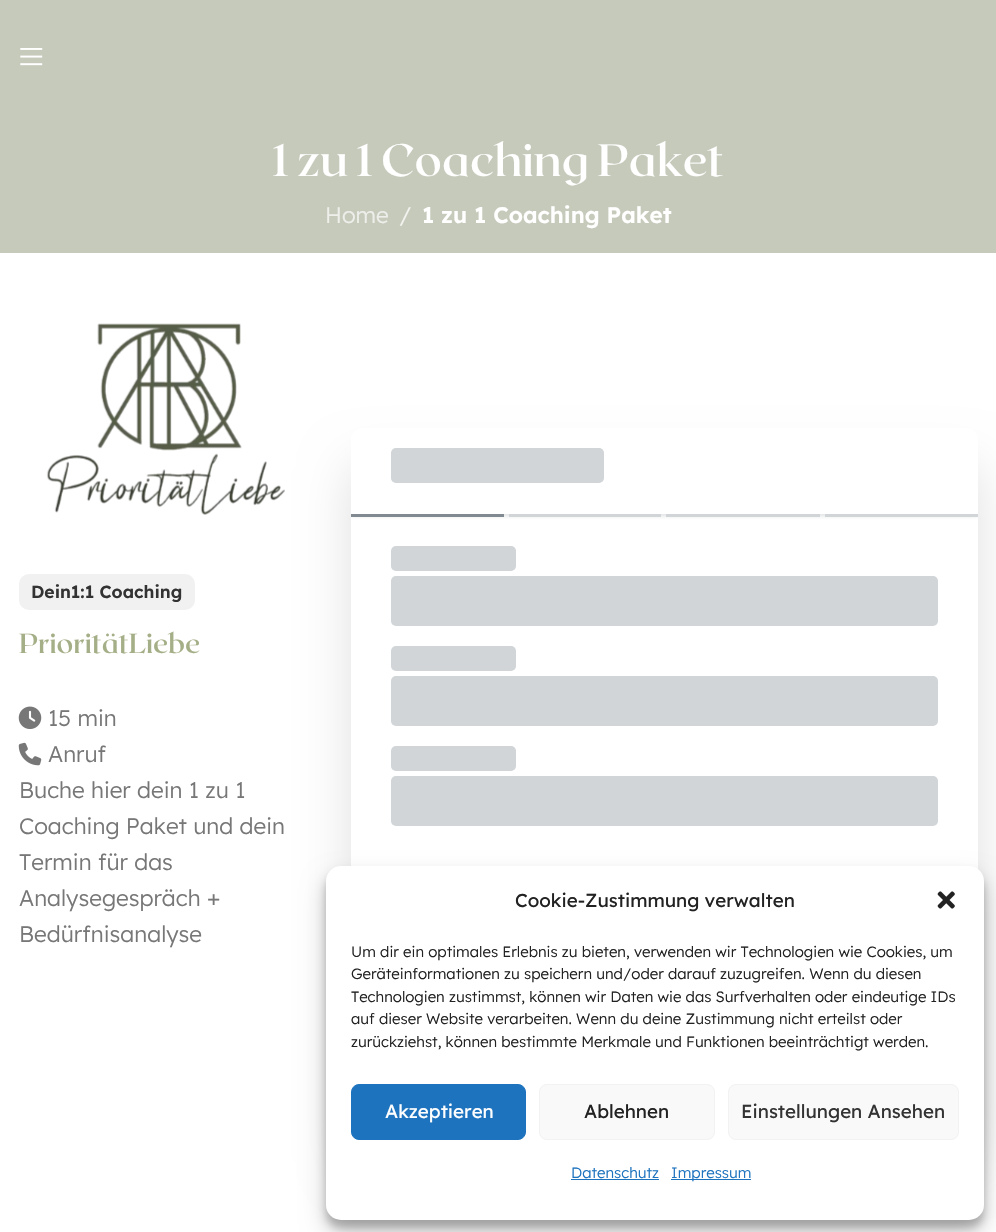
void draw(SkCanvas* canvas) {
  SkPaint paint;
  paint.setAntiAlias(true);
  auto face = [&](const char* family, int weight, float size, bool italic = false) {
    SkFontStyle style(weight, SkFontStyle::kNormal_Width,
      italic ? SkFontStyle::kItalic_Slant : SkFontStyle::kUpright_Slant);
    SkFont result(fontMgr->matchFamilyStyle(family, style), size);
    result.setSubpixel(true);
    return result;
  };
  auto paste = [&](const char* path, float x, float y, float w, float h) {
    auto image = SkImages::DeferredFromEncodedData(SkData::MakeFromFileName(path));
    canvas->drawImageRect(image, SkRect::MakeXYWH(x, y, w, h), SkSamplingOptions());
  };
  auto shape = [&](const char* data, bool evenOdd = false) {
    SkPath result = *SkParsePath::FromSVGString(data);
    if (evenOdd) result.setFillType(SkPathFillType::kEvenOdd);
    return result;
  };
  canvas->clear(0xffffffff);
  paint.setColor(0xffc6cabb);
  canvas->drawRect(SkRect::MakeXYWH(0, 0, 996, 253), paint);
  paste("img/1.png", 20, 48, 23, 18);
  paste("img/2.png", 46, 323, 239, 192);
  paint.setColor(0xfff1f1f1);
  canvas->drawRoundRect(SkRect::MakeXYWH(19, 574, 176, 36), 10, 10, paint);
  paste("img/3.png", 18, 706, 24, 23);
  paste("img/4.png", 18, 742, 24, 24);
  paint.setColor(0x1f000000);
  paint.setMaskFilter(SkMaskFilter::MakeBlur(kNormal_SkBlurStyle, 25));
  canvas->drawRoundRect(SkRect::MakeXYWH(351, 465, 627, 700), 10, 10, paint);
  paint.setMaskFilter(nullptr);
  paint.setColor(0xffffffff);
  canvas->drawRoundRect(SkRect::MakeXYWH(351, 428, 627, 700), 11, 11, paint);
  canvas->save();
  canvas->clipRect(SkRect::MakeXYWH(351, 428, 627, 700));
  canvas->clipPath(shape("M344 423H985V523H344ZM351 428H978V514H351Z", true), true);
  paint.setColor(0x261a2c37);
  paint.setMaskFilter(SkMaskFilter::MakeBlur(kNormal_SkBlurStyle, 2));
  canvas->drawRect(SkRect::MakeXYWH(351, 430, 627, 86), paint);
  paint.setMaskFilter(nullptr);
  canvas->restore();
  {
    const SkColor colors[] = {0xffd1d5d7, 0xff768087, 0xffd1d5d7};
    const float stops[] = {0.25f, 0.37f, 0.63f};
    const SkPoint ends[] = {{391, 465}, {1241, 465}};
    paint.setShader(SkGradientShader::MakeLinear(ends, colors, stops, 3, SkTileMode::kClamp));
    paint.setAlpha(255);
  }
  canvas->drawRoundRect(SkRect::MakeXYWH(391, 448, 213, 35), 5, 5, paint);
  paint.setShader(nullptr);
  {
    const struct { float x, y, w, h; SkColor color; } items[] = {
      {351, 514, 153, 3, 0xff808a90},
      {509, 514, 152, 3, 0xffd1d5d7},
      {666, 514, 154, 3, 0xffd1d5d7},
      {825, 514, 153, 3, 0xffd1d5d7},
    };
    for (auto [x, y, w, h, color] : items) {
      paint.setColor(color);
      canvas->drawRect(SkRect::MakeXYWH(x, y, w, h), paint);
    }
  }
  {
    const SkColor colors[] = {0xffd1d5d7, 0xff768087, 0xffd1d5d7};
    const float stops[] = {0.25f, 0.37f, 0.63f};
    const SkPoint ends[] = {{391, 559}, {891, 559}};
    paint.setShader(SkGradientShader::MakeLinear(ends, colors, stops, 3, SkTileMode::kClamp));
    paint.setAlpha(255);
  }
  canvas->drawRoundRect(SkRect::MakeXYWH(391, 546, 125, 25), 5, 5, paint);
  {
    const SkColor colors[] = {0xffd1d5d7, 0xff768087, 0xffd1d5d7};
    const float stops[] = {0.25f, 0.37f, 0.63f};
    const SkPoint ends[] = {{391, 601}, {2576, 601}};
    paint.setShader(SkGradientShader::MakeLinear(ends, colors, stops, 3, SkTileMode::kClamp));
    paint.setAlpha(255);
  }
  canvas->drawRoundRect(SkRect::MakeXYWH(391, 576, 547, 50), 5, 5, paint);
  {
    const SkColor colors[] = {0xffd1d5d7, 0xff768087, 0xffd1d5d7};
    const float stops[] = {0.25f, 0.37f, 0.63f};
    const SkPoint ends[] = {{391, 659}, {891, 659}};
    paint.setShader(SkGradientShader::MakeLinear(ends, colors, stops, 3, SkTileMode::kClamp));
    paint.setAlpha(255);
  }
  canvas->drawRoundRect(SkRect::MakeXYWH(391, 646, 125, 25), 5, 5, paint);
  {
    const SkColor colors[] = {0xffd1d5d7, 0xff768087, 0xffd1d5d7};
    const float stops[] = {0.25f, 0.37f, 0.63f};
    const SkPoint ends[] = {{391, 701}, {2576, 701}};
    paint.setShader(SkGradientShader::MakeLinear(ends, colors, stops, 3, SkTileMode::kClamp));
    paint.setAlpha(255);
  }
  canvas->drawRoundRect(SkRect::MakeXYWH(391, 676, 547, 50), 5, 5, paint);
  {
    const SkColor colors[] = {0xffd1d5d7, 0xff768087, 0xffd1d5d7};
    const float stops[] = {0.25f, 0.37f, 0.63f};
    const SkPoint ends[] = {{391, 759}, {891, 759}};
    paint.setShader(SkGradientShader::MakeLinear(ends, colors, stops, 3, SkTileMode::kClamp));
    paint.setAlpha(255);
  }
  canvas->drawRoundRect(SkRect::MakeXYWH(391, 746, 125, 25), 5, 5, paint);
  {
    const SkColor colors[] = {0xffd1d5d7, 0xff768087, 0xffd1d5d7};
    const float stops[] = {0.25f, 0.37f, 0.63f};
    const SkPoint ends[] = {{391, 801}, {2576, 801}};
    paint.setShader(SkGradientShader::MakeLinear(ends, colors, stops, 3, SkTileMode::kClamp));
    paint.setAlpha(255);
  }
  canvas->drawRoundRect(SkRect::MakeXYWH(391, 776, 547, 50), 5, 5, paint);
  paint.setShader(nullptr);
  paint.setColor(0x3b000000);
  paint.setMaskFilter(SkMaskFilter::MakeBlur(kNormal_SkBlurStyle, 4));
  canvas->drawRoundRect(SkRect::MakeXYWH(326, 874, 658, 354), 15, 15, paint);
  paint.setMaskFilter(nullptr);
  paint.setColor(0x30000000);
  paint.setMaskFilter(SkMaskFilter::MakeBlur(kNormal_SkBlurStyle, 12.5f));
  canvas->drawRoundRect(SkRect::MakeXYWH(326, 879, 658, 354), 15, 15, paint);
  paint.setMaskFilter(nullptr);
  paint.setColor(0xffffffff);
  canvas->drawRoundRect(SkRect::MakeXYWH(326, 866, 658, 354), 15, 15, paint);
  paste("img/5.png", 937, 891, 18, 18);
  paint.setColor(0xff1e73be);
  canvas->drawRoundRect(SkRect::MakeXYWH(351.5f, 1084.5f, 174, 55), 7.5f, 7.5f, paint);
  paint.setStroke(true);
  paint.setStrokeWidth(1);
  canvas->drawRoundRect(SkRect::MakeXYWH(351.5f, 1084.5f, 174, 55), 7.5f, 7.5f, paint);
  paint.setStroke(false);
  paint.setColor(0xfff9f9f9);
  canvas->drawRoundRect(SkRect::MakeXYWH(539.5f, 1084.5f, 175, 55), 7.5f, 7.5f, paint);
  paint.setStroke(true);
  paint.setColor(0xfff2f2f2);
  canvas->drawRoundRect(SkRect::MakeXYWH(539.5f, 1084.5f, 175, 55), 7.5f, 7.5f, paint);
  paint.setStroke(false);
  paint.setColor(0xfff9f9f9);
  canvas->drawRoundRect(SkRect::MakeXYWH(728.5f, 1084.5f, 230, 55), 7.5f, 7.5f, paint);
  paint.setStroke(true);
  paint.setColor(0xfff2f2f2);
  canvas->drawRoundRect(SkRect::MakeXYWH(728.5f, 1084.5f, 230, 55), 7.5f, 7.5f, paint);
  paint.setStroke(false);
  paint.setColor(0xff1e73be);
  canvas->drawRect(SkRect::MakeXYWH(571, 1179, 88, 1), paint);
  canvas->drawRect(SkRect::MakeXYWH(671, 1179, 80, 1), paint);
  auto f0 = face("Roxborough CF", 600, 45);
  paint.setColor(0xffffffff);
  canvas->drawString("1 zu 1 Coaching Paket", 273, 176, f0, paint);
  auto f1 = face("Lexend", 300, 22.5f);
  paint.setColor(0xffeeefeb);
  canvas->drawString("Home", 325, 223, f1, paint);
  paint.setColor(0xfff4f4f1);
  canvas->drawString("/", 399, 223, f1, paint);
  auto f2 = face("Lexend", 600, 22.5f);
  paint.setColor(0xffffffff);
  canvas->drawString("1 zu 1 Coaching Paket", 422, 223, f2, paint);
  auto f3 = face("Lexend", 600, 17.5f);
  paint.setColor(0xff333333);
  canvas->drawString("Dein1:1 Coaching", 31, 598, f3, paint);
  auto f4 = face("Roxborough CF", 600, 27.5f);
  paint.setColor(0xffa5af87);
  canvas->drawString("PrioritätLiebe", 19, 653, f4, paint);
  paint.setColor(0xff777777);
  {
    const struct { const char* s; float x, y; } items[] = {
      {"15 min", 48, 726},
      {"Anruf", 48, 762},
      {"Buche hier dein 1 zu 1", 19, 798},
      {"Coaching Paket und dein", 19, 834},
      {"Termin für das", 19, 870},
      {"Analysegespräch +", 19, 906},
      {"Bedürfnisanalyse", 19, 942},
    };
    for (auto [s, x, y] : items) {
      canvas->drawString(s, x, y, f1, paint);
    }
  }
  auto f5 = face("Lexend", 400, 18.75f);
  paint.setColor(0xff222222);
  canvas->drawString("Cookie-Zustimmung verwalten", 515, 907, f5, paint);
  auto f6 = face("Lexend", 300, 15);
  {
    const struct { const char* s; float x, y; } items[] = {
      {"Um dir ein optimales Erlebnis zu bieten, verwenden wir Technologien wie Cookies, um", 351, 957},
      {"Geräteinformationen zu speichern und/oder darauf zuzugreifen. Wenn du diesen", 351, 979},
      {"Technologien zustimmst, können wir Daten wie das Surfverhalten oder eindeutige IDs", 351, 1002},
      {"auf dieser Website verarbeiten. Wenn du deine Zustimmung nicht erteilst oder", 351, 1024},
      {"zurückziehst, können bestimmte Merkmale und Funktionen beeinträchtigt werden.", 351, 1047},
    };
    for (auto [s, x, y] : items) {
      canvas->drawString(s, x, y, f6, paint);
    }
  }
  paint.setColor(0xffffffff);
  canvas->drawString("Akzeptieren", 385, 1118, f5, paint);
  paint.setColor(0xff222222);
  canvas->drawString("Ablehnen", 584, 1118, f5, paint);
  paint.setColor(0xff333333);
  canvas->drawString("Einstellungen Ansehen", 741, 1118, f5, paint);
  paint.setColor(0xff1e73be);
  canvas->drawString("Datenschutz", 571, 1178, f6, paint);
  canvas->drawString("Impressum", 671, 1178, f6, paint);
}
